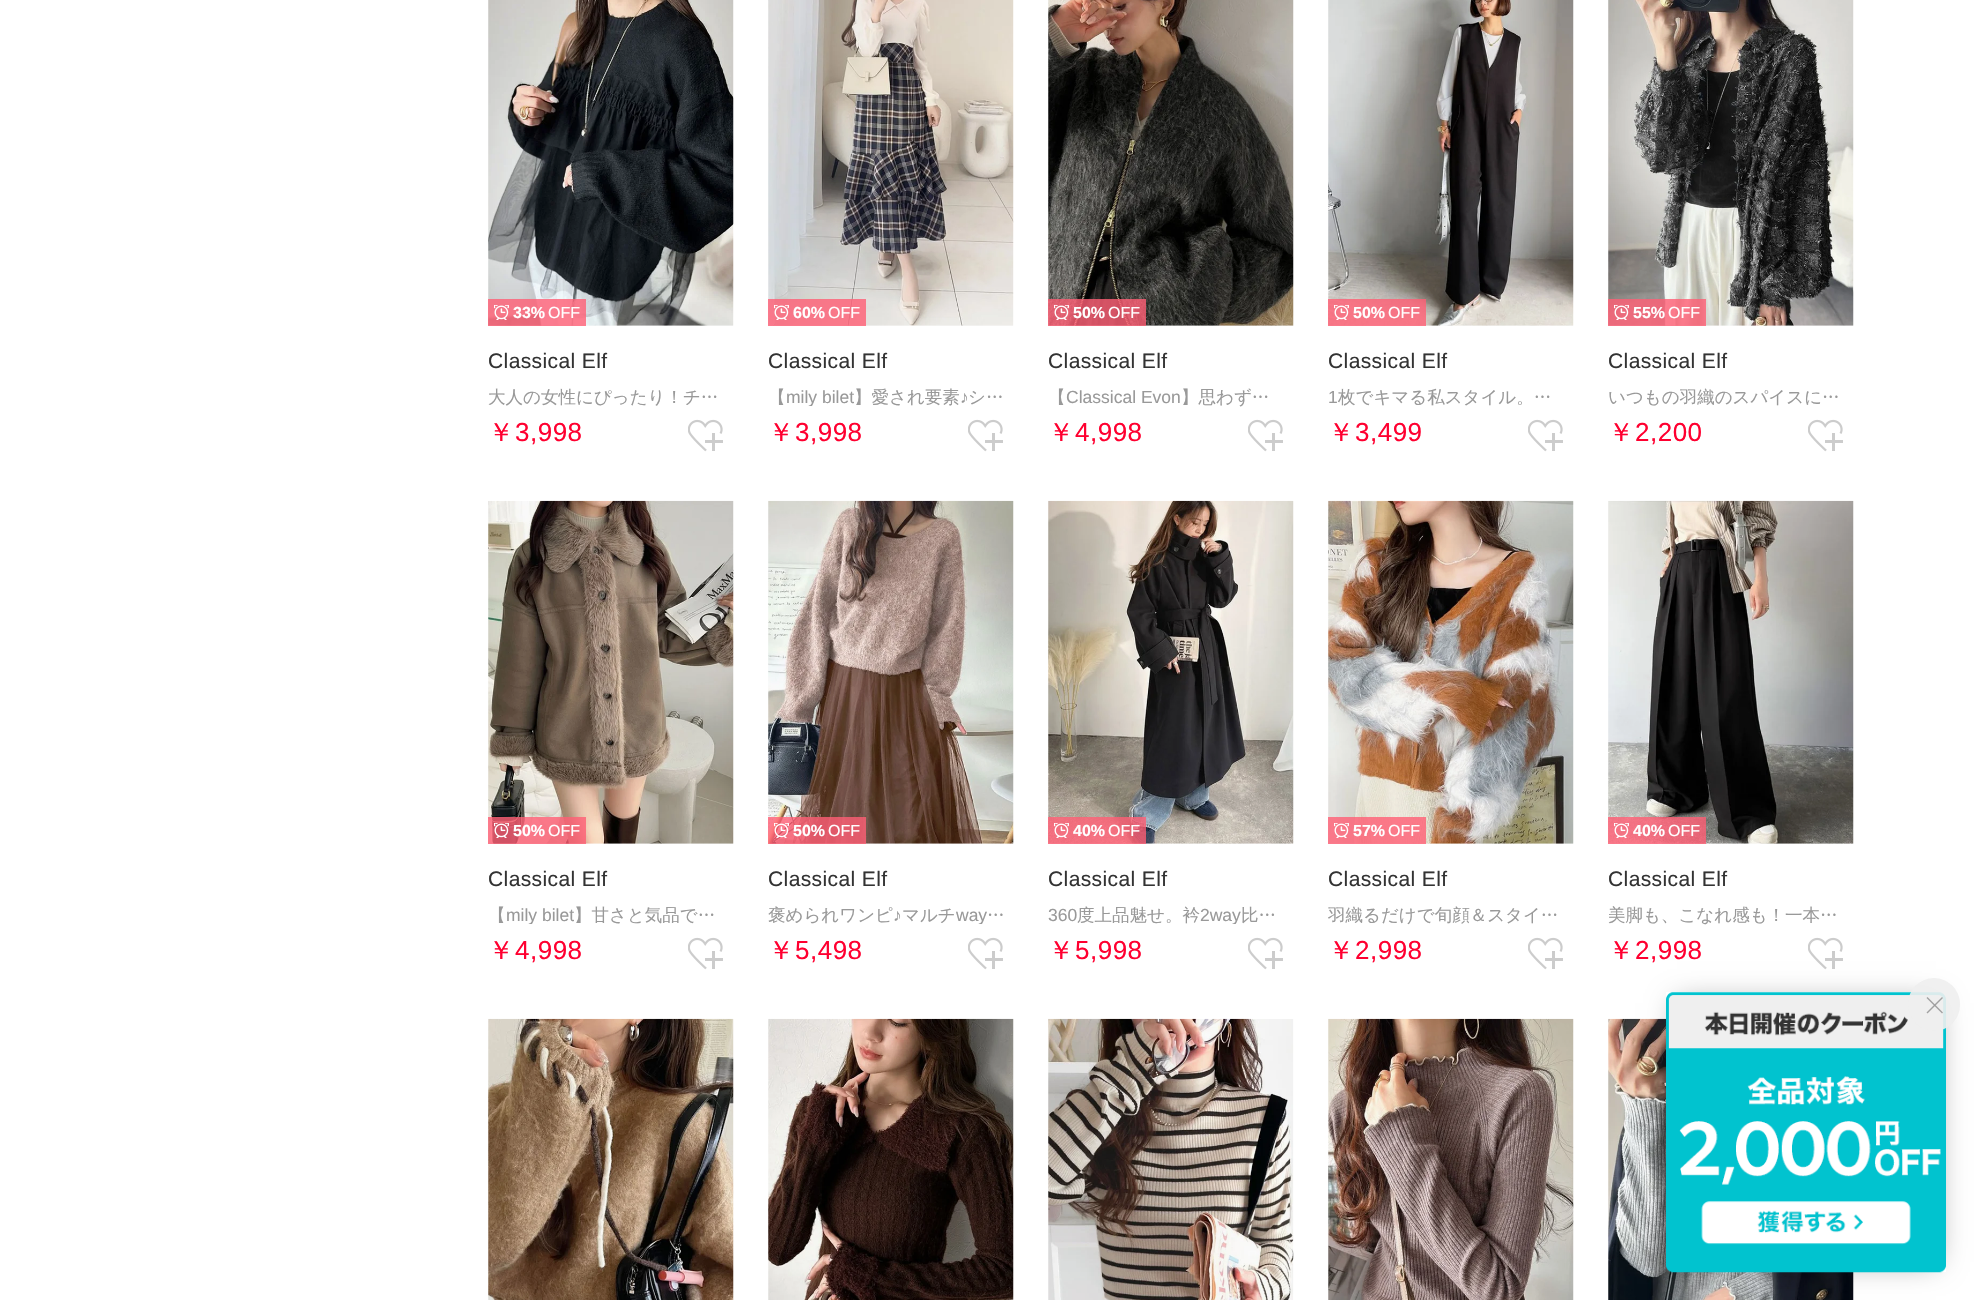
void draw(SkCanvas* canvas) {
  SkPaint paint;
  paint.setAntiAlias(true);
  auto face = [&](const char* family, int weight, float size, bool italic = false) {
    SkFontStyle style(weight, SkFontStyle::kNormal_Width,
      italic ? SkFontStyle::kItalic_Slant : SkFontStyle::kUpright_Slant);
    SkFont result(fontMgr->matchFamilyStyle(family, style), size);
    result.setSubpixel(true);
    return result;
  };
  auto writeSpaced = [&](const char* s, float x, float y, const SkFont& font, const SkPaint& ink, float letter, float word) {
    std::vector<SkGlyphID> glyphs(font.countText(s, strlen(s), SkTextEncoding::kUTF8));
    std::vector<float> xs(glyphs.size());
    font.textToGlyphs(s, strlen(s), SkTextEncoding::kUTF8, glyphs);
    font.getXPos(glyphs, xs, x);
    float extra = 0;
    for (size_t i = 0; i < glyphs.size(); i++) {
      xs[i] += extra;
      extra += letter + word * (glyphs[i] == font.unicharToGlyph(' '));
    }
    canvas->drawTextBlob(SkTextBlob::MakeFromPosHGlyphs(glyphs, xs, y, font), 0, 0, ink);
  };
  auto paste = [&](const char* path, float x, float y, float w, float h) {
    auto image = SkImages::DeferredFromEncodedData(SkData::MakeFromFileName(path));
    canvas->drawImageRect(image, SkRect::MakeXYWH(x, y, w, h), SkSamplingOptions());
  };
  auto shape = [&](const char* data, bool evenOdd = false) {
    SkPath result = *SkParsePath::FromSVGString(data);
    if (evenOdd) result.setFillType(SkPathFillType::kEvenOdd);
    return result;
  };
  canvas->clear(0xffffffff);
  {
    const struct { float x, y, w, h; SkColor color; } items[] = {
      {1608, 501, 245, 343, 0xfffafafa},
      {1328, 501, 245, 343, 0xfffafafa},
      {1048, 501, 245, 343, 0xfffafafa},
      {768, 501, 245, 343, 0xfffafafa},
      {488, 501, 245, 343, 0xfffafafa},
      {1608, 0, 245, 326, 0xfffafafa},
      {1328, 0, 245, 326, 0xfffafafa},
      {1048, 0, 245, 326, 0xfffafafa},
      {768, 0, 245, 326, 0xfffafafa},
      {488, 0, 245, 326, 0xfffafafa},
    };
    for (auto [x, y, w, h, color] : items) {
      paint.setColor(color);
      canvas->drawRect(SkRect::MakeXYWH(x, y, w, h), paint);
    }
  }
  paste("img/1.png", 488, 0, 246, 326);
  paint.setColor(0xccff5e74);
  canvas->drawRect(SkRect::MakeXYWH(488, 299, 98, 27), paint);
  paste("img/2.png", 494, 305, 15, 15);
  paste("img/3.png", 688, 419, 35, 33);
  paste("img/4.png", 768, 0, 246, 326);
  canvas->drawRect(SkRect::MakeXYWH(768, 299, 98, 27), paint);
  paste("img/5.png", 774, 305, 15, 15);
  paste("img/3.png", 968, 419, 35, 33);
  paste("img/6.png", 1048, 0, 246, 326);
  canvas->drawRect(SkRect::MakeXYWH(1048, 299, 98, 27), paint);
  paste("img/7.png", 1054, 305, 15, 15);
  paste("img/3.png", 1248, 419, 35, 33);
  paste("img/8.png", 1328, 0, 246, 326);
  canvas->drawRect(SkRect::MakeXYWH(1328, 299, 98, 27), paint);
  paste("img/9.png", 1334, 305, 15, 15);
  paste("img/3.png", 1528, 419, 35, 33);
  paste("img/10.png", 1608, 0, 246, 326);
  canvas->drawRect(SkRect::MakeXYWH(1608, 299, 98, 27), paint);
  paste("img/11.png", 1614, 305, 15, 15);
  paste("img/3.png", 1808, 419, 35, 33);
  paste("img/12.png", 488, 500, 246, 344);
  canvas->drawRect(SkRect::MakeXYWH(488, 817, 98, 27), paint);
  paste("img/13.png", 494, 823, 15, 15);
  paste("img/3.png", 688, 937, 35, 33);
  paste("img/14.png", 768, 500, 246, 344);
  canvas->drawRect(SkRect::MakeXYWH(768, 817, 98, 27), paint);
  paste("img/15.png", 774, 823, 15, 15);
  paste("img/3.png", 968, 937, 35, 33);
  paste("img/16.png", 1048, 500, 246, 344);
  canvas->drawRect(SkRect::MakeXYWH(1048, 817, 98, 27), paint);
  paste("img/17.png", 1054, 823, 15, 15);
  paste("img/3.png", 1248, 937, 35, 33);
  paste("img/18.png", 1328, 500, 246, 344);
  canvas->drawRect(SkRect::MakeXYWH(1328, 817, 98, 27), paint);
  paste("img/19.png", 1334, 823, 15, 15);
  paste("img/3.png", 1528, 937, 35, 33);
  paste("img/20.png", 1608, 500, 246, 344);
  canvas->drawRect(SkRect::MakeXYWH(1608, 817, 98, 27), paint);
  paste("img/21.png", 1614, 823, 15, 15);
  paste("img/3.png", 1808, 937, 35, 33);
  paste("img/22.png", 488, 1018, 246, 282);
  paste("img/23.png", 768, 1018, 246, 282);
  paste("img/24.png", 1048, 1018, 246, 282);
  paste("img/25.png", 1328, 1018, 246, 282);
  paste("img/26.png", 1608, 1018, 246, 282);
  canvas->save();
  canvas->clipPath(shape("M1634 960H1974V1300H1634ZM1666 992H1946V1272H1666Z", true), true);
  paint.setColor(0x66000000);
  paint.setMaskFilter(SkMaskFilter::MakeBlur(kNormal_SkBlurStyle, 14));
  canvas->drawRect(SkRect::MakeXYWH(1677, 1003, 259, 259), paint);
  paint.setMaskFilter(nullptr);
  canvas->restore();
  paste("img/27.png", 1666, 992, 280, 281);
  paint.setColor(0xe6eeeeee);
  canvas->drawRoundRect(SkRect::MakeXYWH(1908, 978, 52, 53), 26, 26, paint);
  paint.setStroke(true);
  paint.setStrokeWidth(1.4f);
  paint.setColor(0xffa2a2a2);
  canvas->drawPath(shape("M1942.5 1013L1927 997.5"), paint);
  paint.setColor(0xe6999999);
  canvas->drawPath(shape("M1942.5 997.5L1927 1013"), paint);
  auto f0 = face("Liberation Sans", 700, 16);
  paint.setStroke(false);
  paint.setColor(0xffffffff);
  canvas->drawString("33%", 513, 318, f0, paint);
  auto f1 = face("Liberation Sans", 400, 16);
  canvas->drawString("OFF", 548, 318, f1, paint);
  auto f2 = face("Liberation Sans", 400, 21);
  paint.setColor(0xff333333);
  writeSpaced("Classical Elf", 488, 368, f2, paint, 0.4f, 0);
  auto f3 = face("WenQuanYi Zen Hei", 500, 17.5f);
  paint.setColor(0xff999999);
  canvas->drawString("大人の女性にぴったり！チ…", 488, 403, f3, paint);
  auto f4 = face("WenQuanYi Zen Hei", 500, 26);
  paint.setColor(0xffff0030);
  writeSpaced("￥", 488, 441, f4, paint, 0.5f, 0);
  auto f5 = face("Liberation Sans", 400, 26);
  writeSpaced("3,998", 515, 441, f5, paint, 0.5f, 0);
  paint.setColor(0xffffffff);
  canvas->drawString("60%", 793, 318, f0, paint);
  canvas->drawString("OFF", 828, 318, f1, paint);
  paint.setColor(0xff333333);
  writeSpaced("Classical Elf", 768, 368, f2, paint, 0.4f, 0);
  paint.setColor(0xff999999);
  canvas->drawString("【", 768, 403, f3, paint);
  canvas->save();
  canvas->clipRect(SkRect::MakeXYWH(768, 387, 238, 19));
  auto f6 = face("Liberation Sans", 400, 17.5f);
  canvas->drawString("mily bilet", 786, 403, f6, paint);
  canvas->restore();
  canvas->drawString("】愛され要素", 854, 403, f3, paint);
  canvas->drawString("♪", 960, 403, f6, paint);
  canvas->drawString("シ…", 968, 403, f3, paint);
  paint.setColor(0xffff0030);
  writeSpaced("￥", 768, 441, f4, paint, 0.5f, 0);
  writeSpaced("3,998", 795, 441, f5, paint, 0.5f, 0);
  paint.setColor(0xffffffff);
  canvas->drawString("50%", 1073, 318, f0, paint);
  canvas->drawString("OFF", 1108, 318, f1, paint);
  paint.setColor(0xff333333);
  writeSpaced("Classical Elf", 1048, 368, f2, paint, 0.4f, 0);
  paint.setColor(0xff999999);
  canvas->drawString("【", 1048, 403, f3, paint);
  canvas->drawString("Classical Evon", 1066, 403, f6, paint);
  canvas->drawString("】思わず…", 1181, 403, f3, paint);
  paint.setColor(0xffff0030);
  writeSpaced("￥", 1048, 441, f4, paint, 0.5f, 0);
  writeSpaced("4,998", 1075, 441, f5, paint, 0.5f, 0);
  paint.setColor(0xffffffff);
  canvas->drawString("50%", 1353, 318, f0, paint);
  canvas->drawString("OFF", 1388, 318, f1, paint);
  paint.setColor(0xff333333);
  writeSpaced("Classical Elf", 1328, 368, f2, paint, 0.4f, 0);
  paint.setColor(0xff999999);
  canvas->drawString("1", 1328, 403, f6, paint);
  canvas->drawString("枚でキマる私スタイル。…", 1338, 403, f3, paint);
  paint.setColor(0xffff0030);
  writeSpaced("￥", 1328, 441, f4, paint, 0.5f, 0);
  writeSpaced("3,499", 1355, 441, f5, paint, 0.5f, 0);
  paint.setColor(0xffffffff);
  canvas->drawString("55%", 1633, 318, f0, paint);
  canvas->drawString("OFF", 1668, 318, f1, paint);
  paint.setColor(0xff333333);
  writeSpaced("Classical Elf", 1608, 368, f2, paint, 0.4f, 0);
  paint.setColor(0xff999999);
  canvas->drawString("いつもの羽織のスパイスに…", 1608, 403, f3, paint);
  paint.setColor(0xffff0030);
  writeSpaced("￥", 1608, 441, f4, paint, 0.5f, 0);
  writeSpaced("2,200", 1635, 441, f5, paint, 0.5f, 0);
  paint.setColor(0xffffffff);
  canvas->drawString("50%", 513, 836, f0, paint);
  canvas->drawString("OFF", 548, 836, f1, paint);
  paint.setColor(0xff333333);
  writeSpaced("Classical Elf", 488, 886, f2, paint, 0.4f, 0);
  paint.setColor(0xff999999);
  canvas->drawString("【", 488, 921, f3, paint);
  canvas->save();
  canvas->clipRect(SkRect::MakeXYWH(488, 905, 238, 19));
  canvas->drawString("mily bilet", 506, 921, f6, paint);
  canvas->restore();
  canvas->drawString("】甘さと気品で…", 574, 921, f3, paint);
  paint.setColor(0xffff0030);
  writeSpaced("￥", 488, 959, f4, paint, 0.5f, 0);
  writeSpaced("4,998", 515, 959, f5, paint, 0.5f, 0);
  paint.setColor(0xffffffff);
  canvas->drawString("50%", 793, 836, f0, paint);
  canvas->drawString("OFF", 828, 836, f1, paint);
  paint.setColor(0xff333333);
  writeSpaced("Classical Elf", 768, 886, f2, paint, 0.4f, 0);
  paint.setColor(0xff999999);
  canvas->drawString("褒められワンピ", 768, 921, f3, paint);
  canvas->drawString("♪", 893, 921, f6, paint);
  canvas->drawString("マルチ", 902, 921, f3, paint);
  canvas->save();
  canvas->clipRect(SkRect::MakeXYWH(768, 905, 238, 19));
  canvas->drawString("way", 956, 921, f6, paint);
  canvas->restore();
  canvas->drawString("…", 987, 921, f3, paint);
  paint.setColor(0xffff0030);
  writeSpaced("￥", 768, 959, f4, paint, 0.5f, 0);
  writeSpaced("5,498", 795, 959, f5, paint, 0.5f, 0);
  paint.setColor(0xffffffff);
  canvas->drawString("40%", 1073, 836, f0, paint);
  canvas->drawString("OFF", 1108, 836, f1, paint);
  paint.setColor(0xff333333);
  writeSpaced("Classical Elf", 1048, 886, f2, paint, 0.4f, 0);
  paint.setColor(0xff999999);
  canvas->drawString("360", 1048, 921, f6, paint);
  canvas->drawString("度上品魅せ。衿", 1077, 921, f3, paint);
  canvas->save();
  canvas->clipRect(SkRect::MakeXYWH(1048, 905, 238, 19));
  canvas->drawString("2way", 1200, 921, f6, paint);
  canvas->restore();
  canvas->drawString("比…", 1241, 921, f3, paint);
  paint.setColor(0xffff0030);
  writeSpaced("￥", 1048, 959, f4, paint, 0.5f, 0);
  writeSpaced("5,998", 1075, 959, f5, paint, 0.5f, 0);
  paint.setColor(0xffffffff);
  canvas->drawString("57%", 1353, 836, f0, paint);
  canvas->drawString("OFF", 1388, 836, f1, paint);
  paint.setColor(0xff333333);
  writeSpaced("Classical Elf", 1328, 886, f2, paint, 0.4f, 0);
  paint.setColor(0xff999999);
  canvas->drawString("羽織るだけで旬顔＆スタイ…", 1328, 921, f3, paint);
  paint.setColor(0xffff0030);
  writeSpaced("￥", 1328, 959, f4, paint, 0.5f, 0);
  writeSpaced("2,998", 1355, 959, f5, paint, 0.5f, 0);
  paint.setColor(0xffffffff);
  canvas->drawString("40%", 1633, 836, f0, paint);
  canvas->drawString("OFF", 1668, 836, f1, paint);
  paint.setColor(0xff333333);
  writeSpaced("Classical Elf", 1608, 886, f2, paint, 0.4f, 0);
  paint.setColor(0xff999999);
  canvas->drawString("美脚も、こなれ感も！一本…", 1608, 921, f3, paint);
  paint.setColor(0xffff0030);
  writeSpaced("￥", 1608, 959, f4, paint, 0.5f, 0);
  writeSpaced("2,998", 1635, 959, f5, paint, 0.5f, 0);
}
